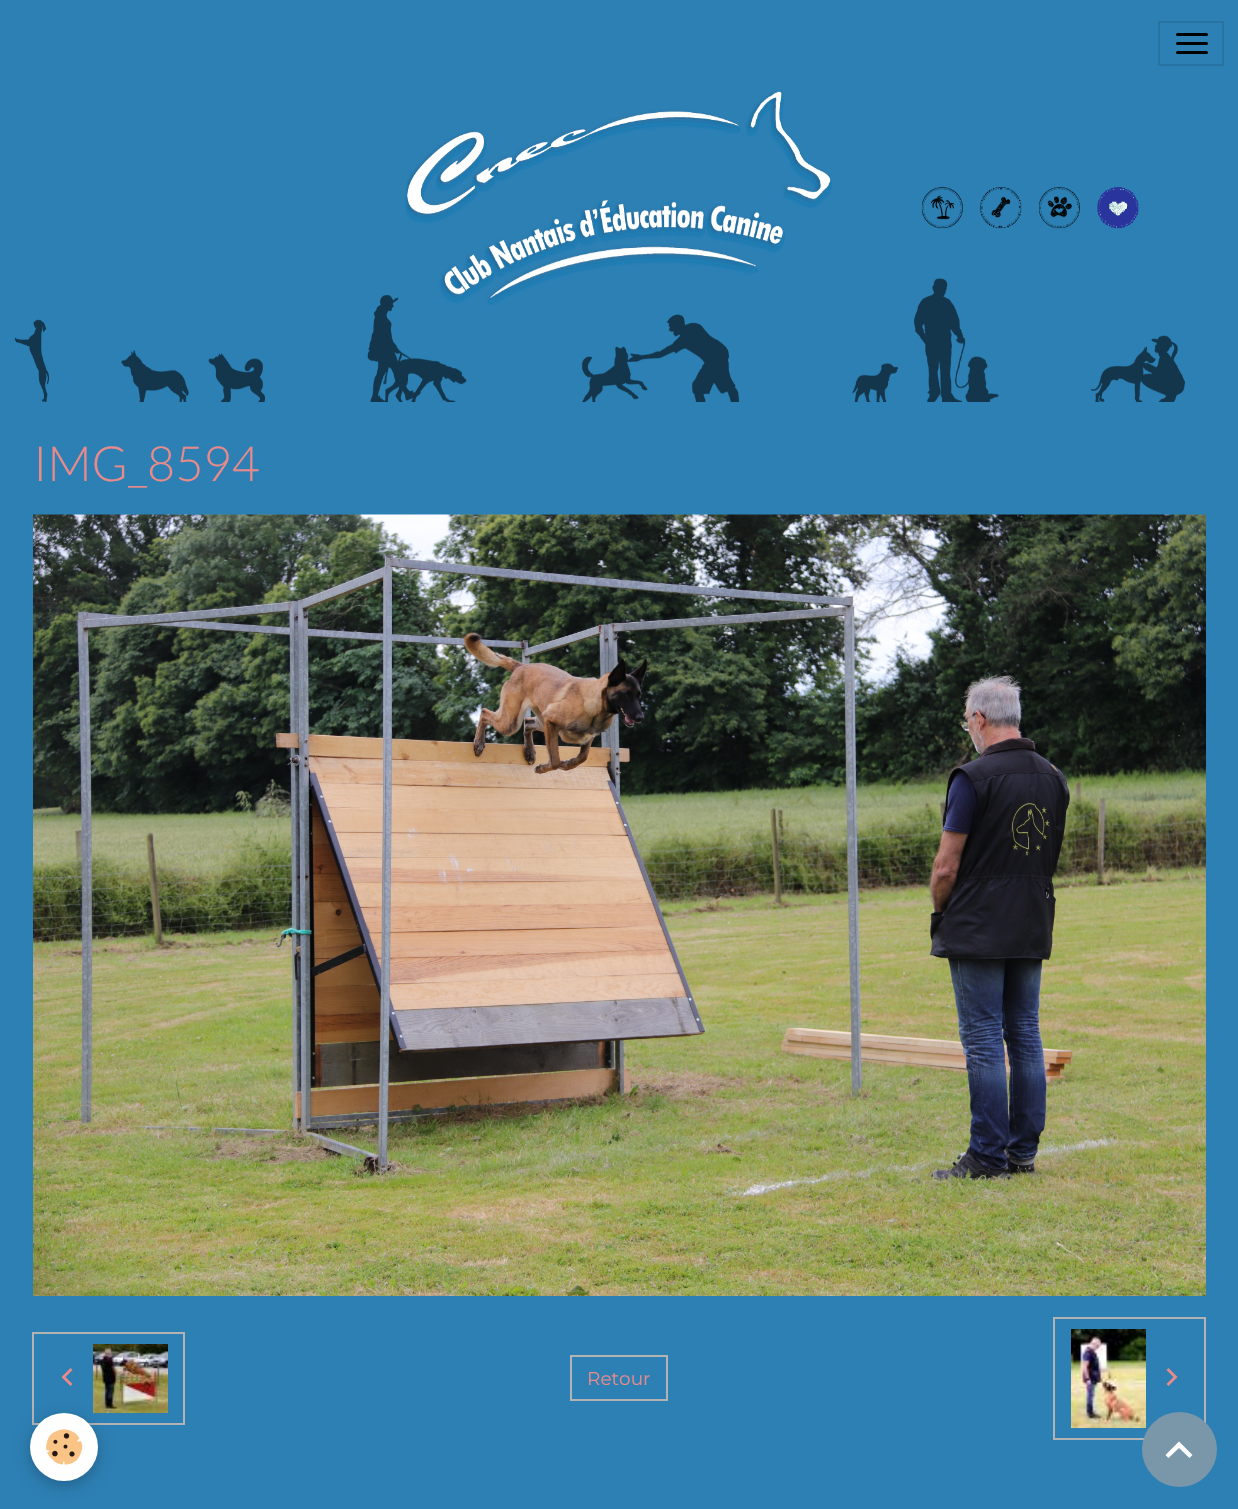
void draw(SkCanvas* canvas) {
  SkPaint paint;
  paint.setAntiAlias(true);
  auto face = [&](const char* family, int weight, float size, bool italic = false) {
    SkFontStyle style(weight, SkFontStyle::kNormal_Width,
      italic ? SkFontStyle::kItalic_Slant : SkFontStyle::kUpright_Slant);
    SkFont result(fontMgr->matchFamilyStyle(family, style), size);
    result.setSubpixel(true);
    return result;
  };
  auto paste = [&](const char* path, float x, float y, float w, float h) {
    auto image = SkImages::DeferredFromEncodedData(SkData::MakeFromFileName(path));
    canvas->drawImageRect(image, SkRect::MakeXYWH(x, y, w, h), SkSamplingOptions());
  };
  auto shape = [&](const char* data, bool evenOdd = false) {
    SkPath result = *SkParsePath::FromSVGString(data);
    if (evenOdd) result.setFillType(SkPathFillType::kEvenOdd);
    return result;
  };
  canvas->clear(0xff2d80b4);
  paint.setStroke(true);
  paint.setStrokeWidth(2);
  paint.setColor(0xff2973a2);
  canvas->drawRect(SkRect::MakeXYWH(1159, 22, 64, 43), paint);
  paint.setStroke(false);
  paint.setColor(0xff000000);
  canvas->drawRoundRect(SkRect::MakeXYWH(1176, 33, 32, 3), 1.5f, 1.5f, paint);
  canvas->drawRoundRect(SkRect::MakeXYWH(1176, 42, 32, 3), 1.5f, 1.5f, paint);
  canvas->drawRoundRect(SkRect::MakeXYWH(1176, 51, 32, 3), 1.5f, 1.5f, paint);
  paste("img/1.png", 15, 87, 1209, 315);
  paste("img/2.png", 33, 514, 1173, 782);
  paint.setStroke(true);
  paint.setColor(0xffb3b3b3);
  canvas->drawRect(SkRect::MakeXYWH(33, 1333, 151, 91), paint);
  paint.setStroke(false);
  paint.setColor(0xffe88a8a);
  canvas->drawPath(shape("M72.5 1370L65.5 1377L72.5 1384L70.5 1386L61.5 1377L70.5 1368Z"), paint);
  paste("img/3.png", 93, 1344, 75, 69);
  paint.setStroke(true);
  paint.setColor(0xffb3b3b3);
  canvas->drawRect(SkRect::MakeXYWH(571, 1356, 96, 44), paint);
  canvas->drawRect(SkRect::MakeXYWH(1054, 1318, 151, 121), paint);
  paste("img/4.png", 1071, 1329, 75, 99);
  paint.setStroke(false);
  paint.setColor(0xffe88a8a);
  canvas->drawPath(shape("M1168.5 1368L1177.5 1377L1168.5 1386L1166.5 1384L1173.5 1377L1166.5 1370Z"), paint);
  paint.setColor(0x3d000000);
  paint.setMaskFilter(SkMaskFilter::MakeBlur(kNormal_SkBlurStyle, 7.5f));
  canvas->drawRoundRect(SkRect::MakeXYWH(30, 1418, 68, 67), 33.5f, 33.5f, paint);
  paint.setMaskFilter(nullptr);
  paint.setColor(0xffffffff);
  canvas->drawCircle(64, 1447, 34, paint);
  paste("img/5.png", 46, 1429, 37, 36);
  paint.setColor(0xff7a97aa);
  canvas->drawCircle(1179.5f, 1449.5f, 37.5f, paint);
  paint.setColor(0xffffffff);
  canvas->drawPath(shape("M1179 1441.5L1192.5 1455L1189.5 1458L1179 1448L1168.5 1458L1165.5 1455Z"), paint);
  auto f0 = face("Lato", 300, 48.5f);
  paint.setColor(0xffe88a8a);
  canvas->drawString("IMG_8594", 33, 481, f0, paint);
  auto f1 = face("Montserrat", 400, 18.5f);
  canvas->drawString("Retour", 587, 1385, f1, paint);
}
